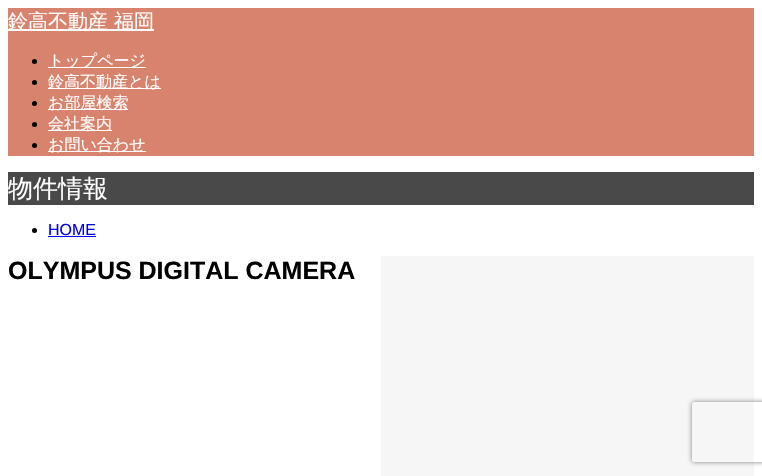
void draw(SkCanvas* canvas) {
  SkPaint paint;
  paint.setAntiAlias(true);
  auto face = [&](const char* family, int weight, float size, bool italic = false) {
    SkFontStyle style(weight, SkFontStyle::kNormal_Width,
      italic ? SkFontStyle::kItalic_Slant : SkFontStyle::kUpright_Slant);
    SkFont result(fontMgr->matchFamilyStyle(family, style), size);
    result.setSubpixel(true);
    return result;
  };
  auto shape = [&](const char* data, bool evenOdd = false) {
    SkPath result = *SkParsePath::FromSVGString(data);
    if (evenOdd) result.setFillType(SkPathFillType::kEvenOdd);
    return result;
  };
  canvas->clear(0xffffffff);
  paint.setColor(0xffd8836e);
  canvas->drawRect(SkRect::MakeXYWH(8, 8, 746, 148), paint);
  paint.setColor(0xffffffff);
  canvas->drawRect(SkRect::MakeXYWH(8, 29, 146, 2), paint);
  paint.setColor(0xff000000);
  canvas->drawCircle(34.5f, 61.5f, 2.5f, paint);
  paint.setColor(0xffffffff);
  canvas->drawRect(SkRect::MakeXYWH(48, 67, 98, 1), paint);
  paint.setColor(0xff000000);
  canvas->drawCircle(34.5f, 82.5f, 2.5f, paint);
  paint.setColor(0xffffffff);
  canvas->drawRect(SkRect::MakeXYWH(48, 88, 113, 1), paint);
  paint.setColor(0xff000000);
  canvas->drawCircle(34.5f, 103.5f, 2.5f, paint);
  paint.setColor(0xffffffff);
  canvas->drawRect(SkRect::MakeXYWH(48, 109, 80, 1), paint);
  paint.setColor(0xff000000);
  canvas->drawCircle(34.5f, 124.5f, 2.5f, paint);
  paint.setColor(0xffffffff);
  canvas->drawRect(SkRect::MakeXYWH(48, 130, 64, 1), paint);
  paint.setColor(0xff000000);
  canvas->drawCircle(34.5f, 145.5f, 2.5f, paint);
  paint.setColor(0xffffffff);
  canvas->drawRect(SkRect::MakeXYWH(48, 151, 98, 1), paint);
  paint.setColor(0xff494949);
  canvas->drawRect(SkRect::MakeXYWH(8, 172, 746, 33), paint);
  paint.setColor(0xff000000);
  canvas->drawCircle(34.5f, 230.5f, 2.5f, paint);
  paint.setColor(0xff0000ee);
  canvas->drawRect(SkRect::MakeXYWH(48, 236, 48, 1), paint);
  paint.setColor(0xfff6f6f6);
  canvas->drawRect(SkRect::MakeXYWH(381, 256, 373, 220), paint);
  canvas->save();
  canvas->clipPath(shape("M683 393H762V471H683ZM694 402H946C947 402 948 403 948 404V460C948 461 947 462 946 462H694C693 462 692 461 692 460V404C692 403 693 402 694 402Z", true), true);
  paint.setColor(0xff808080);
  paint.setMaskFilter(SkMaskFilter::MakeBlur(kNormal_SkBlurStyle, 2.5f));
  canvas->drawRoundRect(SkRect::MakeXYWH(692, 402, 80, 60), 2, 2, paint);
  paint.setMaskFilter(nullptr);
  canvas->restore();
  auto f0 = face("WenQuanYi Zen Hei", 500, 20);
  paint.setColor(0xffffffff);
  canvas->drawString("鈴高不動産 福岡", 8, 28, f0, paint);
  auto f1 = face("WenQuanYi Zen Hei", 500, 16);
  {
    const struct { const char* s; float x, y; } items[] = {
      {"トップページ", 48, 66},
      {"鈴高不動産とは", 48, 87},
      {"お部屋検索", 48, 108},
      {"会社案内", 48, 129},
      {"お問い合わせ", 48, 150},
    };
    for (auto [s, x, y] : items) {
      canvas->drawString(s, x, y, f1, paint);
    }
  }
  auto f2 = face("WenQuanYi Zen Hei", 500, 25);
  canvas->drawString("物件情報", 8, 197, f2, paint);
  auto f3 = face("Liberation Sans", 400, 16);
  paint.setColor(0xff0000ee);
  canvas->drawString("HOME", 48, 235, f3, paint);
  auto f4 = face("Liberation Sans", 700, 25);
  paint.setColor(0xff000000);
  canvas->drawString("OLYMPUS DIGITAL CAMERA", 8, 279, f4, paint);
}
